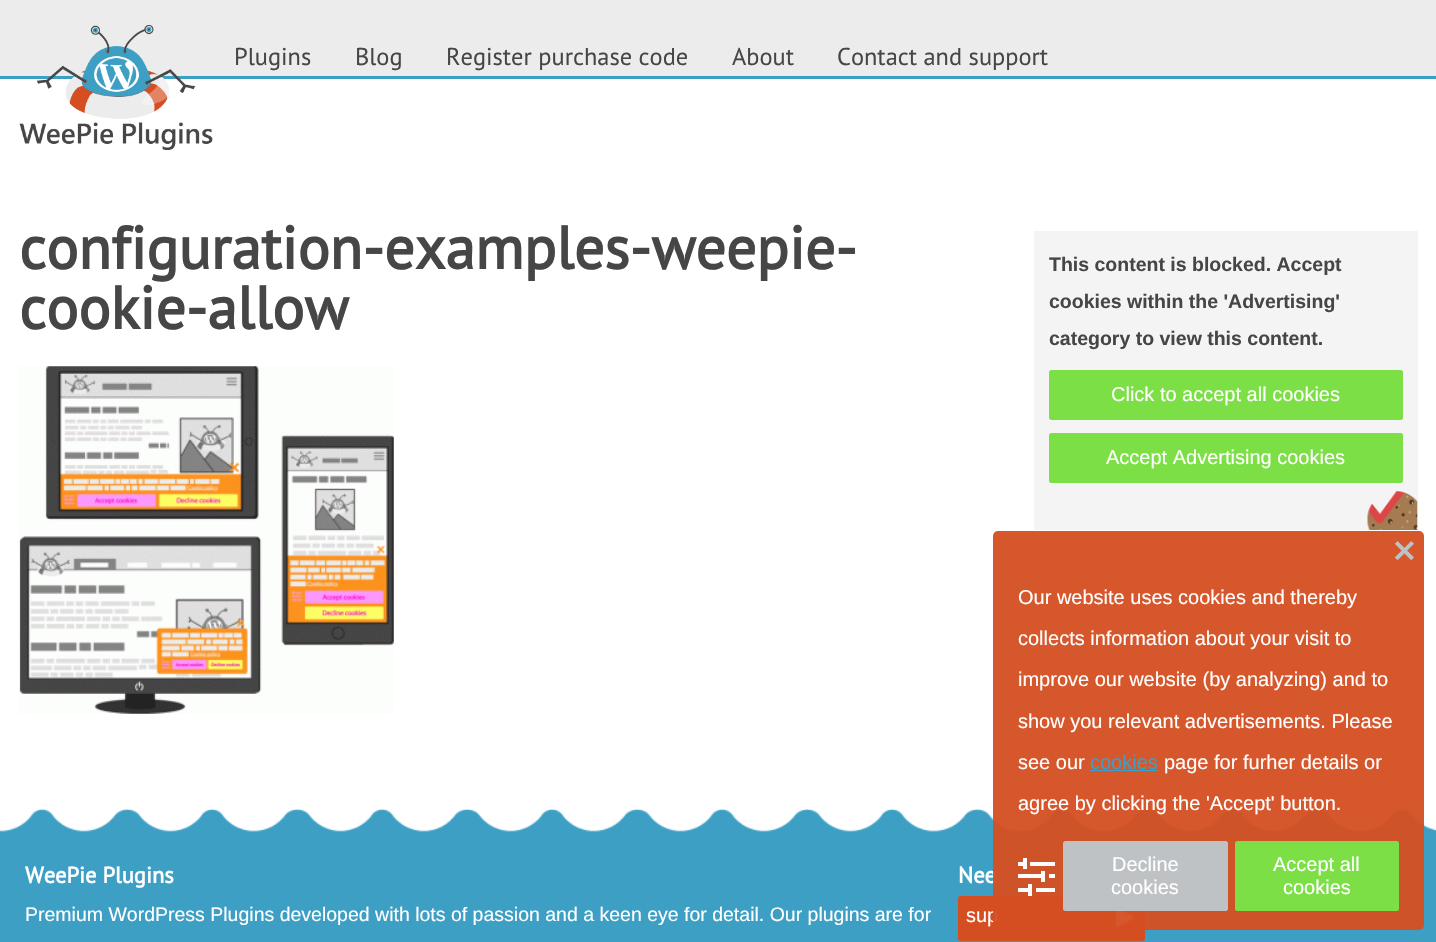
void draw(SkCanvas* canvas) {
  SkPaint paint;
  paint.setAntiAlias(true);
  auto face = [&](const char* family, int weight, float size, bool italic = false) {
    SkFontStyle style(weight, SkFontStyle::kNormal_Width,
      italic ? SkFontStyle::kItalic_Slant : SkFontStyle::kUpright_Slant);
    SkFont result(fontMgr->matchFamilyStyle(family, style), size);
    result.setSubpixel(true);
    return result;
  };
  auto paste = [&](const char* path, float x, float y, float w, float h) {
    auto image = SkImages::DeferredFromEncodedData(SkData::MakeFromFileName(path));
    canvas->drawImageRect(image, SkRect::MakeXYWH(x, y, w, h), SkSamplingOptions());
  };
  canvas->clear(0xffffffff);
  paint.setColor(0xffececec);
  canvas->drawRect(SkRect::MakeXYWH(0, 0, 1436, 76), paint);
  paint.setColor(0xff3d9fc4);
  canvas->drawRect(SkRect::MakeXYWH(0, 76, 1436, 3), paint);
  paste("img/1.png", 19, 25, 194, 125);
  paste("img/2.png", 19, 366, 375, 348);
  paint.setColor(0xfff4f4f4);
  canvas->drawRect(SkRect::MakeXYWH(1034, 231, 384, 299), paint);
  paint.setColor(0xff7cdf46);
  canvas->drawRoundRect(SkRect::MakeXYWH(1049, 370, 354, 50), 2.5f, 2.5f, paint);
  canvas->drawRoundRect(SkRect::MakeXYWH(1049, 433, 354, 50), 2.5f, 2.5f, paint);
  paste("img/3.png", 1367, 491, 51, 39);
  paste("img/4.png", 0, 809, 1436, 25);
  paint.setColor(0xff3d9fc4);
  canvas->drawRect(SkRect::MakeXYWH(0, 834, 1436, 108), paint);
  paint.setColor(0xffd54e21);
  canvas->drawRoundRect(SkRect::MakeXYWH(958, 896, 187, 45), 2.5f, 2.5f, paint);
  paste("img/5.png", 1116, 911, 18, 16);
  auto f0 = face("PT Sans", 400, 24.4f);
  paint.setColor(0xff464646);
  {
    const struct { const char* s; float x, y; } items[] = {
      {"Plugins", 234, 65},
      {"Blog", 355, 65},
      {"Register purchase code", 446, 65},
      {"About", 732, 65},
      {"Contact and support", 837, 65},
    };
    for (auto [s, x, y] : items) {
      canvas->drawString(s, x, y, f0, paint);
    }
  }
  auto f1 = face("PT Sans", 700, 60);
  canvas->drawString("configuration-examples-weepie-", 19, 269, f1, paint);
  canvas->drawString("cookie-allow", 19, 329, f1, paint);
  auto f2 = face("Liberation Sans", 700, 19.5f);
  {
    const struct { const char* s; float x, y; } items[] = {
      {"This content is blocked. Accept", 1049, 271},
      {"cookies within the 'Advertising'", 1049, 308},
      {"category to view this content.", 1049, 345},
    };
    for (auto [s, x, y] : items) {
      canvas->drawString(s, x, y, f2, paint);
    }
  }
  auto f3 = face("Liberation Sans", 400, 20);
  paint.setColor(0xffffffff);
  canvas->drawString("Click to accept all cookies", 1111, 401, f3, paint);
  canvas->drawString("Accept Advertising cookies", 1106, 464, f3, paint);
  auto f4 = face("PT Sans", 700, 22.5f);
  canvas->drawString("WeePie Plugins", 25, 883, f4, paint);
  auto f5 = face("Liberation Sans", 400, 19.5f);
  canvas->drawString("Premium WordPress Plugins developed with lots of passion and a keen eye for detail. Our plugins are for", 25, 921, f5, paint);
  canvas->drawString("Nee", 958, 883, f4, paint);
  canvas->drawString("sup", 966, 922, f3, paint);
  paint.setColor(0xf2d54e21);
  canvas->drawRoundRect(SkRect::MakeXYWH(993, 531, 431, 399), 5, 5, paint);
  paste("img/6.png", 1394, 541, 20, 20);
  paint.setColor(0xffffffff);
  {
    const struct { const char* s; float x, y; } items[] = {
      {"Our website uses cookies and thereby", 1018, 604},
      {"collects information about your visit to", 1018, 645},
      {"improve our website (by analyzing) and to", 1018, 686},
      {"show you relevant advertisements. Please", 1018, 728},
      {"see our", 1018, 769},
    };
    for (auto [s, x, y] : items) {
      canvas->drawString(s, x, y, f3, paint);
    }
  }
  paint.setColor(0xff3d9fc4);
  canvas->drawString("cookies", 1090, 769, f3, paint);
  canvas->drawRect(SkRect::MakeXYWH(1090, 770, 68, 1), paint);
  paint.setColor(0xffffffff);
  canvas->drawString("page for furher details or", 1164, 769, f3, paint);
  canvas->drawString("agree by clicking the 'Accept' button.", 1018, 810, f3, paint);
  paste("img/7.png", 1018, 858, 37, 38);
  paint.setColor(0xffbec2c4);
  canvas->drawRoundRect(SkRect::MakeXYWH(1063, 841, 165, 70), 2.5f, 2.5f, paint);
  paint.setColor(0xffffffff);
  canvas->drawString("Decline", 1112, 871, f3, paint);
  canvas->drawString("cookies", 1111, 894, f3, paint);
  paint.setColor(0xff7cdf46);
  canvas->drawRoundRect(SkRect::MakeXYWH(1235, 841, 164, 70), 2.5f, 2.5f, paint);
  paint.setColor(0xffffffff);
  canvas->drawString("Accept all", 1273, 871, f3, paint);
  canvas->drawString("cookies", 1283, 894, f3, paint);
}
